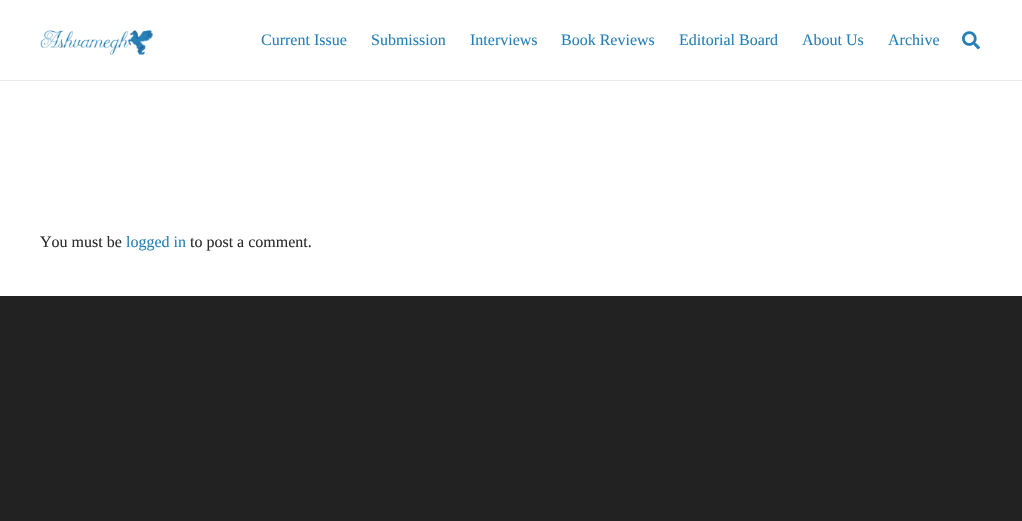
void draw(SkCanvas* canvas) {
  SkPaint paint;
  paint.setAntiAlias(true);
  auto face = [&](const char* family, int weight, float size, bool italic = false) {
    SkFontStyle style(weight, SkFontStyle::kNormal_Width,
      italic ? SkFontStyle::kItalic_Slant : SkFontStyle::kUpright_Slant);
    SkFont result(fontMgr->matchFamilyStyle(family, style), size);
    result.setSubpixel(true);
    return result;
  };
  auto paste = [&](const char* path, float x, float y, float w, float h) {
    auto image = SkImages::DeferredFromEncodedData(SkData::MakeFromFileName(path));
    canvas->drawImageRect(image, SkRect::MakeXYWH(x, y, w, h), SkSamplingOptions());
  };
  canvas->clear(0xff222222);
  paint.setColor(0xffffffff);
  canvas->drawRect(SkRect::MakeXYWH(0, 0, 1022, 296), paint);
  paint.setColor(0xffebebeb);
  canvas->drawRect(SkRect::MakeXYWH(0, 80, 1022, 1), paint);
  paste("img/1.png", 40, 30, 113, 25);
  paste("img/2.png", 962, 31, 18, 19);
  auto f0 = face("Liberation Serif", 400, 16);
  paint.setColor(0xff277fb7);
  {
    const struct { const char* s; float x, y; } items[] = {
      {"Current Issue", 261, 45},
      {"Submission", 371, 45},
      {"Interviews", 470, 45},
      {"Book Reviews", 561, 45},
      {"Editorial Board", 679, 45},
      {"About Us", 802, 45},
      {"Archive", 888, 45},
    };
    for (auto [s, x, y] : items) {
      canvas->drawString(s, x, y, f0, paint);
    }
  }
  paint.setColor(0xff2b2b2b);
  canvas->drawString("You must be", 40, 247, f0, paint);
  paint.setColor(0xff277fb7);
  canvas->drawString("logged in", 126, 247, f0, paint);
  paint.setColor(0xff2b2b2b);
  canvas->drawString("to post a comment.", 190, 247, f0, paint);
}
